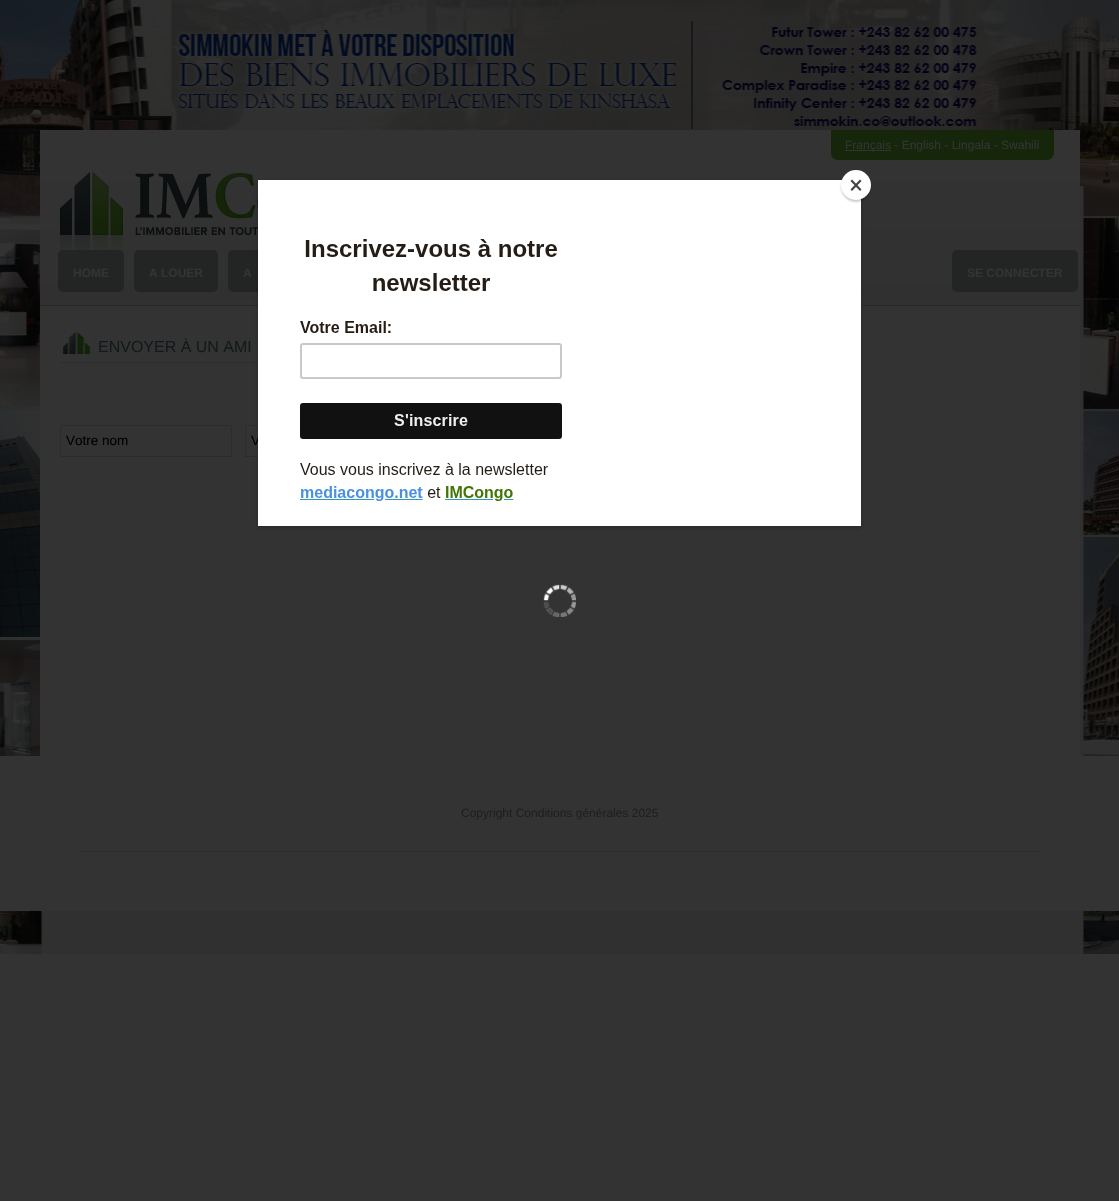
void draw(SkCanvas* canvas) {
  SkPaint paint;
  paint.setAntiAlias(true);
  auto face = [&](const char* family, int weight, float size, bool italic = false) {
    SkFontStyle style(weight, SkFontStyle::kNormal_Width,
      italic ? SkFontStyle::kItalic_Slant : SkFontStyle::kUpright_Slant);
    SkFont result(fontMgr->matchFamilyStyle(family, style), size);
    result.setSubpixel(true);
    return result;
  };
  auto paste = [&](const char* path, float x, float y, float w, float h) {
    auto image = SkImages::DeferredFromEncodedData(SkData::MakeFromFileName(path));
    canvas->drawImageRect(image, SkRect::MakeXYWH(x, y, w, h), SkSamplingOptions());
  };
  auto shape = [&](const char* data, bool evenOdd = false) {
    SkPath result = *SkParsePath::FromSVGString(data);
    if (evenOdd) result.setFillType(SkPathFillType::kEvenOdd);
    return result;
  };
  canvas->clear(0xff333333);
  paste("img/1.png", 0, 0, 1119, 954);
  paste("img/2.png", 40, 130, 1040, 175);
  paint.setColor(0xff272828);
  canvas->drawRect(SkRect::MakeXYWH(40, 305, 1040, 1), paint);
  paint.setColor(0xff15260a);
  canvas->drawPath(shape("M828 130H1057V153C1057 158.5 1052.5 163 1047 163H838C832.5 163 828 158.5 828 153Z"), paint);
  paint.setColor(0xff333333);
  canvas->drawPath(shape("M828 130H1057V153C1057 159 1053 163 1047 163H838C832 163 828 159 828 153ZM831 130H1054V153C1054 157 1051 160 1047 160H838C834 160 831 157 831 153Z", true), paint);
  canvas->drawRect(SkRect::MakeXYWH(845, 150, 46, 1), paint);
  paste("img/3.png", 60, 172, 198, 80);
  paint.setColor(0xff232424);
  canvas->drawRoundRect(SkRect::MakeXYWH(58, 250, 66, 42), 5, 5, paint);
  canvas->drawRoundRect(SkRect::MakeXYWH(134, 250, 84, 42), 5, 5, paint);
  canvas->drawRoundRect(SkRect::MakeXYWH(228, 250, 92, 42), 5, 5, paint);
  canvas->drawRoundRect(SkRect::MakeXYWH(952, 250, 126, 42), 5, 5, paint);
  paint.setColor(0xff333333);
  canvas->drawRect(SkRect::MakeXYWH(40, 306, 1040, 450), paint);
  paste("img/4.png", 62, 332, 29, 23);
  paint.setColor(0xff2d2d2d);
  canvas->drawRect(SkRect::MakeXYWH(60, 362, 198, 1), paint);
  paint.setStroke(true);
  paint.setStrokeWidth(1);
  paint.setColor(0xff2c2c2c);
  canvas->drawRect(SkRect::MakeXYWH(60.5f, 425.5f, 171, 31), paint);
  canvas->drawRect(SkRect::MakeXYWH(245.5f, 425.5f, 171, 31), paint);
  paint.setStroke(false);
  paint.setColor(0x33000000);
  paint.setMaskFilter(SkMaskFilter::MakeBlur(kNormal_SkBlurStyle, 2));
  canvas->drawRect(SkRect::MakeXYWH(258, 182, 603, 346), paint);
  paint.setMaskFilter(nullptr);
  paste("img/6.png", 543, 584, 33, 33);
  paint.setColor(0xff333333);
  canvas->drawRect(SkRect::MakeXYWH(0, 756, 1119, 155), paint);
  paint.setColor(0xff2d2d2d);
  canvas->drawRect(SkRect::MakeXYWH(80, 851, 960, 1), paint);
  auto f0 = face("Liberation Sans", 400, 12);
  paint.setColor(0xff333333);
  canvas->drawString("Français - English - Lingala - Swahili", 845, 149, f0, paint);
  auto f1 = face("Liberation Sans", 700, 12);
  {
    const struct { const char* s; float x, y; } items[] = {
      {"HOME", 73, 277},
      {"A LOUER", 149, 277},
      {"A", 243, 277},
      {"SE CONNECTER", 967, 277},
    };
    for (auto [s, x, y] : items) {
      canvas->drawString(s, x, y, f1, paint);
    }
  }
  auto f2 = face("Liberation Sans", 400, 16);
  paint.setColor(0xff12191a);
  canvas->drawString("ENVOYER À UN AMI", 98, 352, f2, paint);
  auto f3 = face("Liberation Sans", 400, 13.5f);
  paint.setColor(0xff000000);
  canvas->drawString("Votre nom", 66, 445, f3, paint);
  canvas->drawString("V", 251, 445, f3, paint);
  paste("img/5.png", 258, 180, 603, 346);
  paint.setColor(0x33000000);
  paint.setMaskFilter(SkMaskFilter::MakeBlur(kNormal_SkBlurStyle, 1));
  canvas->drawRoundRect(SkRect::MakeXYWH(841, 172, 30, 30), 15, 15, paint);
  paint.setMaskFilter(nullptr);
  paint.setColor(0xffffffff);
  canvas->drawCircle(856, 185, 15, paint);
  paint.setColor(0xff414141);
  canvas->drawPath(shape("M860 179.5L861.5 181L852 191L850.5 189.5Z"), paint);
  canvas->drawPath(shape("M850.5 181L852 179.5L861.5 189.5L860 191Z"), paint);
  paint.setColor(0xff1e1e1e);
  canvas->drawString("Copyright Conditions générales 2025", 461, 817, f0, paint);
}
